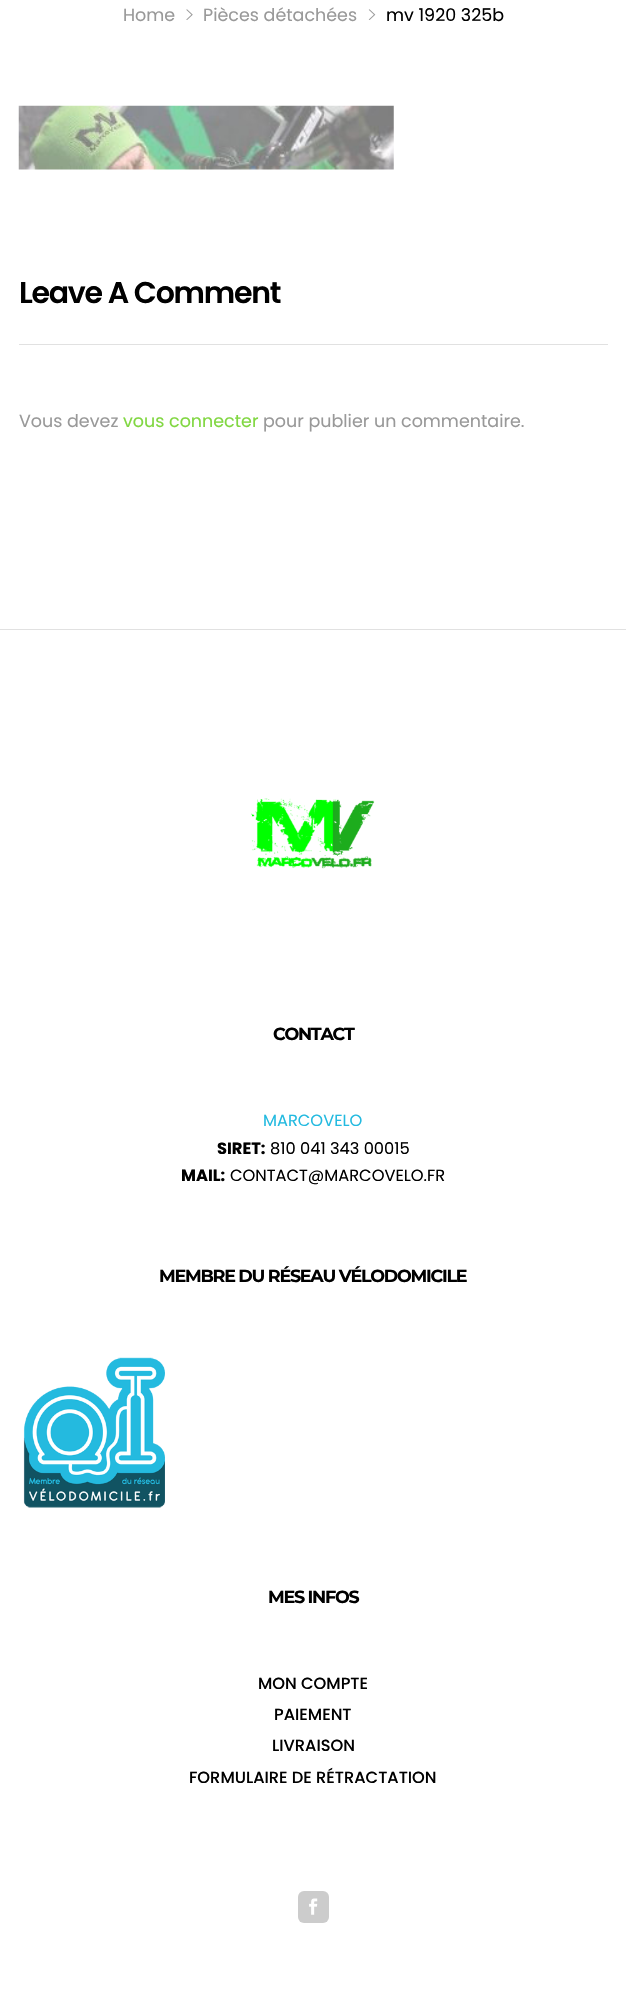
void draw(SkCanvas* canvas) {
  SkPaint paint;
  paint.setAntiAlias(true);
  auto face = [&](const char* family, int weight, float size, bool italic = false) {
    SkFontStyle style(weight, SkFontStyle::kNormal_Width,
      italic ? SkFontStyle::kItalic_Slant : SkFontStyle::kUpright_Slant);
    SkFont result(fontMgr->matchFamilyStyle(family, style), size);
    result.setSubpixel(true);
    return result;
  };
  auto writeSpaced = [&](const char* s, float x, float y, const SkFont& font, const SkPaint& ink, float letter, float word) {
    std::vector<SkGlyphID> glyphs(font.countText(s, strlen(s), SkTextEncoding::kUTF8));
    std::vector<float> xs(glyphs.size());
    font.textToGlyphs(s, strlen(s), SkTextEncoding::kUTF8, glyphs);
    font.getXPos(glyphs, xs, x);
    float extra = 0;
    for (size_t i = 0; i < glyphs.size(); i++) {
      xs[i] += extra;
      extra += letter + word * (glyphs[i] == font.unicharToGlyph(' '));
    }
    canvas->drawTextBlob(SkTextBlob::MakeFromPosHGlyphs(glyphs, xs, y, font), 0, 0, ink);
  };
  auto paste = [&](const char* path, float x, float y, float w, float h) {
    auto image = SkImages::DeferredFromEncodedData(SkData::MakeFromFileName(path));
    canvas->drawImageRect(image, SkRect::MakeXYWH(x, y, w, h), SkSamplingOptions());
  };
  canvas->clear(0xffffffff);
  paste("img/1.png", 186, 9, 7, 11);
  paste("img/2.png", 368, 9, 8, 11);
  paste("img/3.png", 18, 105, 376, 65);
  paint.setColor(0xffe1e1e1);
  canvas->drawRect(SkRect::MakeXYWH(19, 344, 589, 1), paint);
  canvas->drawRect(SkRect::MakeXYWH(0, 629, 626, 1), paint);
  paste("img/4.png", 251, 798, 124, 71);
  paste("img/5.png", 23, 1357, 142, 151);
  paint.setColor(0xffcccccc);
  canvas->drawRoundRect(SkRect::MakeXYWH(298, 1891, 31, 32), 6, 6, paint);
  paste("img/6.png", 309, 1898, 9, 17);
  auto f0 = face("Poppins", 400, 17.5f);
  paint.setColor(0xff999999);
  canvas->drawString("Home", 123, 21, f0, paint);
  canvas->drawString("Pièces détachées", 203, 21, f0, paint);
  paint.setColor(0xff000000);
  canvas->drawString("mv 1920 325b", 386, 21, f0, paint);
  auto f1 = face("Poppins", 600, 30);
  writeSpaced("Leave A Comment", 19, 303, f1, paint, -1.25f, 0);
  paint.setColor(0xff999999);
  canvas->drawString("Vous devez", 19, 427, f0, paint);
  paint.setColor(0xff81d742);
  canvas->drawString("vous connecter", 123, 427, f0, paint);
  paint.setColor(0xff999999);
  canvas->drawString("pour publier un commentaire.", 263, 427, f0, paint);
  auto f2 = face("Montserrat", 700, 17.5f);
  paint.setColor(0xff000000);
  writeSpaced("CONTACT", 273, 1040, f2, paint, -1.25f, 0);
  auto f3 = face("Poppins", 400, 16.25f);
  paint.setColor(0xff23bae0);
  canvas->drawString("MARCOVELO", 263, 1126, f3, paint);
  auto f4 = face("Poppins", 700, 16.25f);
  paint.setColor(0xff000000);
  canvas->drawString("SIRET:", 217, 1154, f4, paint);
  canvas->drawString("810 041 343 00015", 270, 1154, f3, paint);
  canvas->drawString("MAIL:", 181, 1181, f4, paint);
  canvas->drawString("CONTACT@MARCOVELO.FR", 230, 1181, f3, paint);
  writeSpaced("MEMBRE DU RÉSEAU VÉLODOMICILE", 159, 1282, f2, paint, -1.25f, 0);
  writeSpaced("MES INFOS", 268, 1603, f2, paint, -1.25f, 0);
  auto f5 = face("Poppins", 500, 16.25f);
  {
    const struct { const char* s; float x, y; } items[] = {
      {"MON COMPTE", 258, 1689},
      {"PAIEMENT", 274, 1720},
      {"LIVRAISON", 272, 1751},
      {"FORMULAIRE DE RÉTRACTATION", 189, 1783},
    };
    for (auto [s, x, y] : items) {
      canvas->drawString(s, x, y, f5, paint);
    }
  }
}
